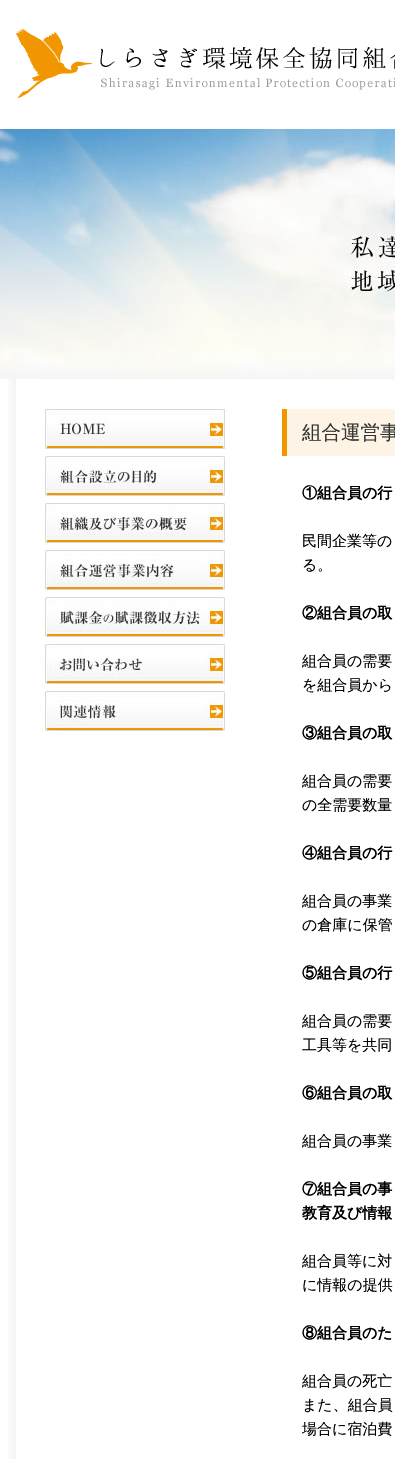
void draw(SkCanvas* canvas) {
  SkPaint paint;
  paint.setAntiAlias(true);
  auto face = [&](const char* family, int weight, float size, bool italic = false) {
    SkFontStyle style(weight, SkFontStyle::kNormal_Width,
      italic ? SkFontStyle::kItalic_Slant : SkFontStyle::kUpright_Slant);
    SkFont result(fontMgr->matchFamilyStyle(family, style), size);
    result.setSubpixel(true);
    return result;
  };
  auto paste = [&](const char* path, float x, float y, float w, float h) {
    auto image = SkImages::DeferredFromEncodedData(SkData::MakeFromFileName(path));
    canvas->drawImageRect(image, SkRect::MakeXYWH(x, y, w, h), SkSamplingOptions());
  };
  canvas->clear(0xffffffff);
  paste("img/1.png", 16, 29, 379, 69);
  paste("img/2.png", 0, 129, 395, 250);
  paste("img/3.png", 8, 379, 8, 1080);
  paste("img/4.png", 45, 409, 180, 40);
  paste("img/5.png", 45, 456, 180, 40);
  paste("img/6.png", 45, 503, 180, 40);
  paste("img/7.png", 45, 550, 180, 40);
  paste("img/8.png", 45, 597, 180, 40);
  paste("img/9.png", 45, 644, 180, 40);
  paste("img/10.png", 45, 691, 180, 40);
  paint.setColor(0xfffef4e5);
  canvas->drawRect(SkRect::MakeXYWH(287, 409, 108, 47), paint);
  paint.setColor(0xfff29600);
  canvas->drawRect(SkRect::MakeXYWH(282, 409, 5, 47), paint);
  auto f0 = face("WenQuanYi Zen Hei", 500, 19.5f);
  paint.setColor(0xff333333);
  canvas->drawString("組合運営事", 302, 439, f0, paint);
  auto f1 = face("WenQuanYi Zen Hei", 700, 15);
  paint.setColor(0xff000000);
  canvas->drawString("①組合員の行", 302, 498, f1, paint);
  auto f2 = face("WenQuanYi Zen Hei", 500, 15);
  canvas->drawString("民間企業等の", 302, 546, f2, paint);
  canvas->drawString("る。", 302, 570, f2, paint);
  canvas->drawString("②組合員の取", 302, 618, f1, paint);
  canvas->drawString("組合員の需要", 302, 666, f2, paint);
  canvas->drawString("を組合員から", 302, 690, f2, paint);
  canvas->drawString("③組合員の取", 302, 738, f1, paint);
  canvas->drawString("組合員の需要", 302, 786, f2, paint);
  canvas->drawString("の全需要数量", 302, 810, f2, paint);
  canvas->drawString("④組合員の行", 302, 858, f1, paint);
  canvas->drawString("組合員の事業", 302, 906, f2, paint);
  canvas->drawString("の倉庫に保管", 302, 930, f2, paint);
  canvas->drawString("⑤組合員の行", 302, 978, f1, paint);
  canvas->drawString("組合員の需要", 302, 1026, f2, paint);
  canvas->drawString("工具等を共同", 302, 1050, f2, paint);
  canvas->drawString("⑥組合員の取", 302, 1098, f1, paint);
  canvas->drawString("組合員の事業", 302, 1146, f2, paint);
  canvas->drawString("⑦組合員の事", 302, 1194, f1, paint);
  canvas->drawString("教育及び情報", 302, 1218, f1, paint);
  canvas->drawString("組合員等に対", 302, 1266, f2, paint);
  canvas->drawString("に情報の提供", 302, 1290, f2, paint);
  canvas->drawString("⑧組合員のた", 302, 1338, f1, paint);
  {
    const struct { const char* s; float x, y; } items[] = {
      {"組合員の死亡", 302, 1386},
      {"また、組合員", 302, 1410},
      {"場合に宿泊費", 302, 1434},
    };
    for (auto [s, x, y] : items) {
      canvas->drawString(s, x, y, f2, paint);
    }
  }
}
